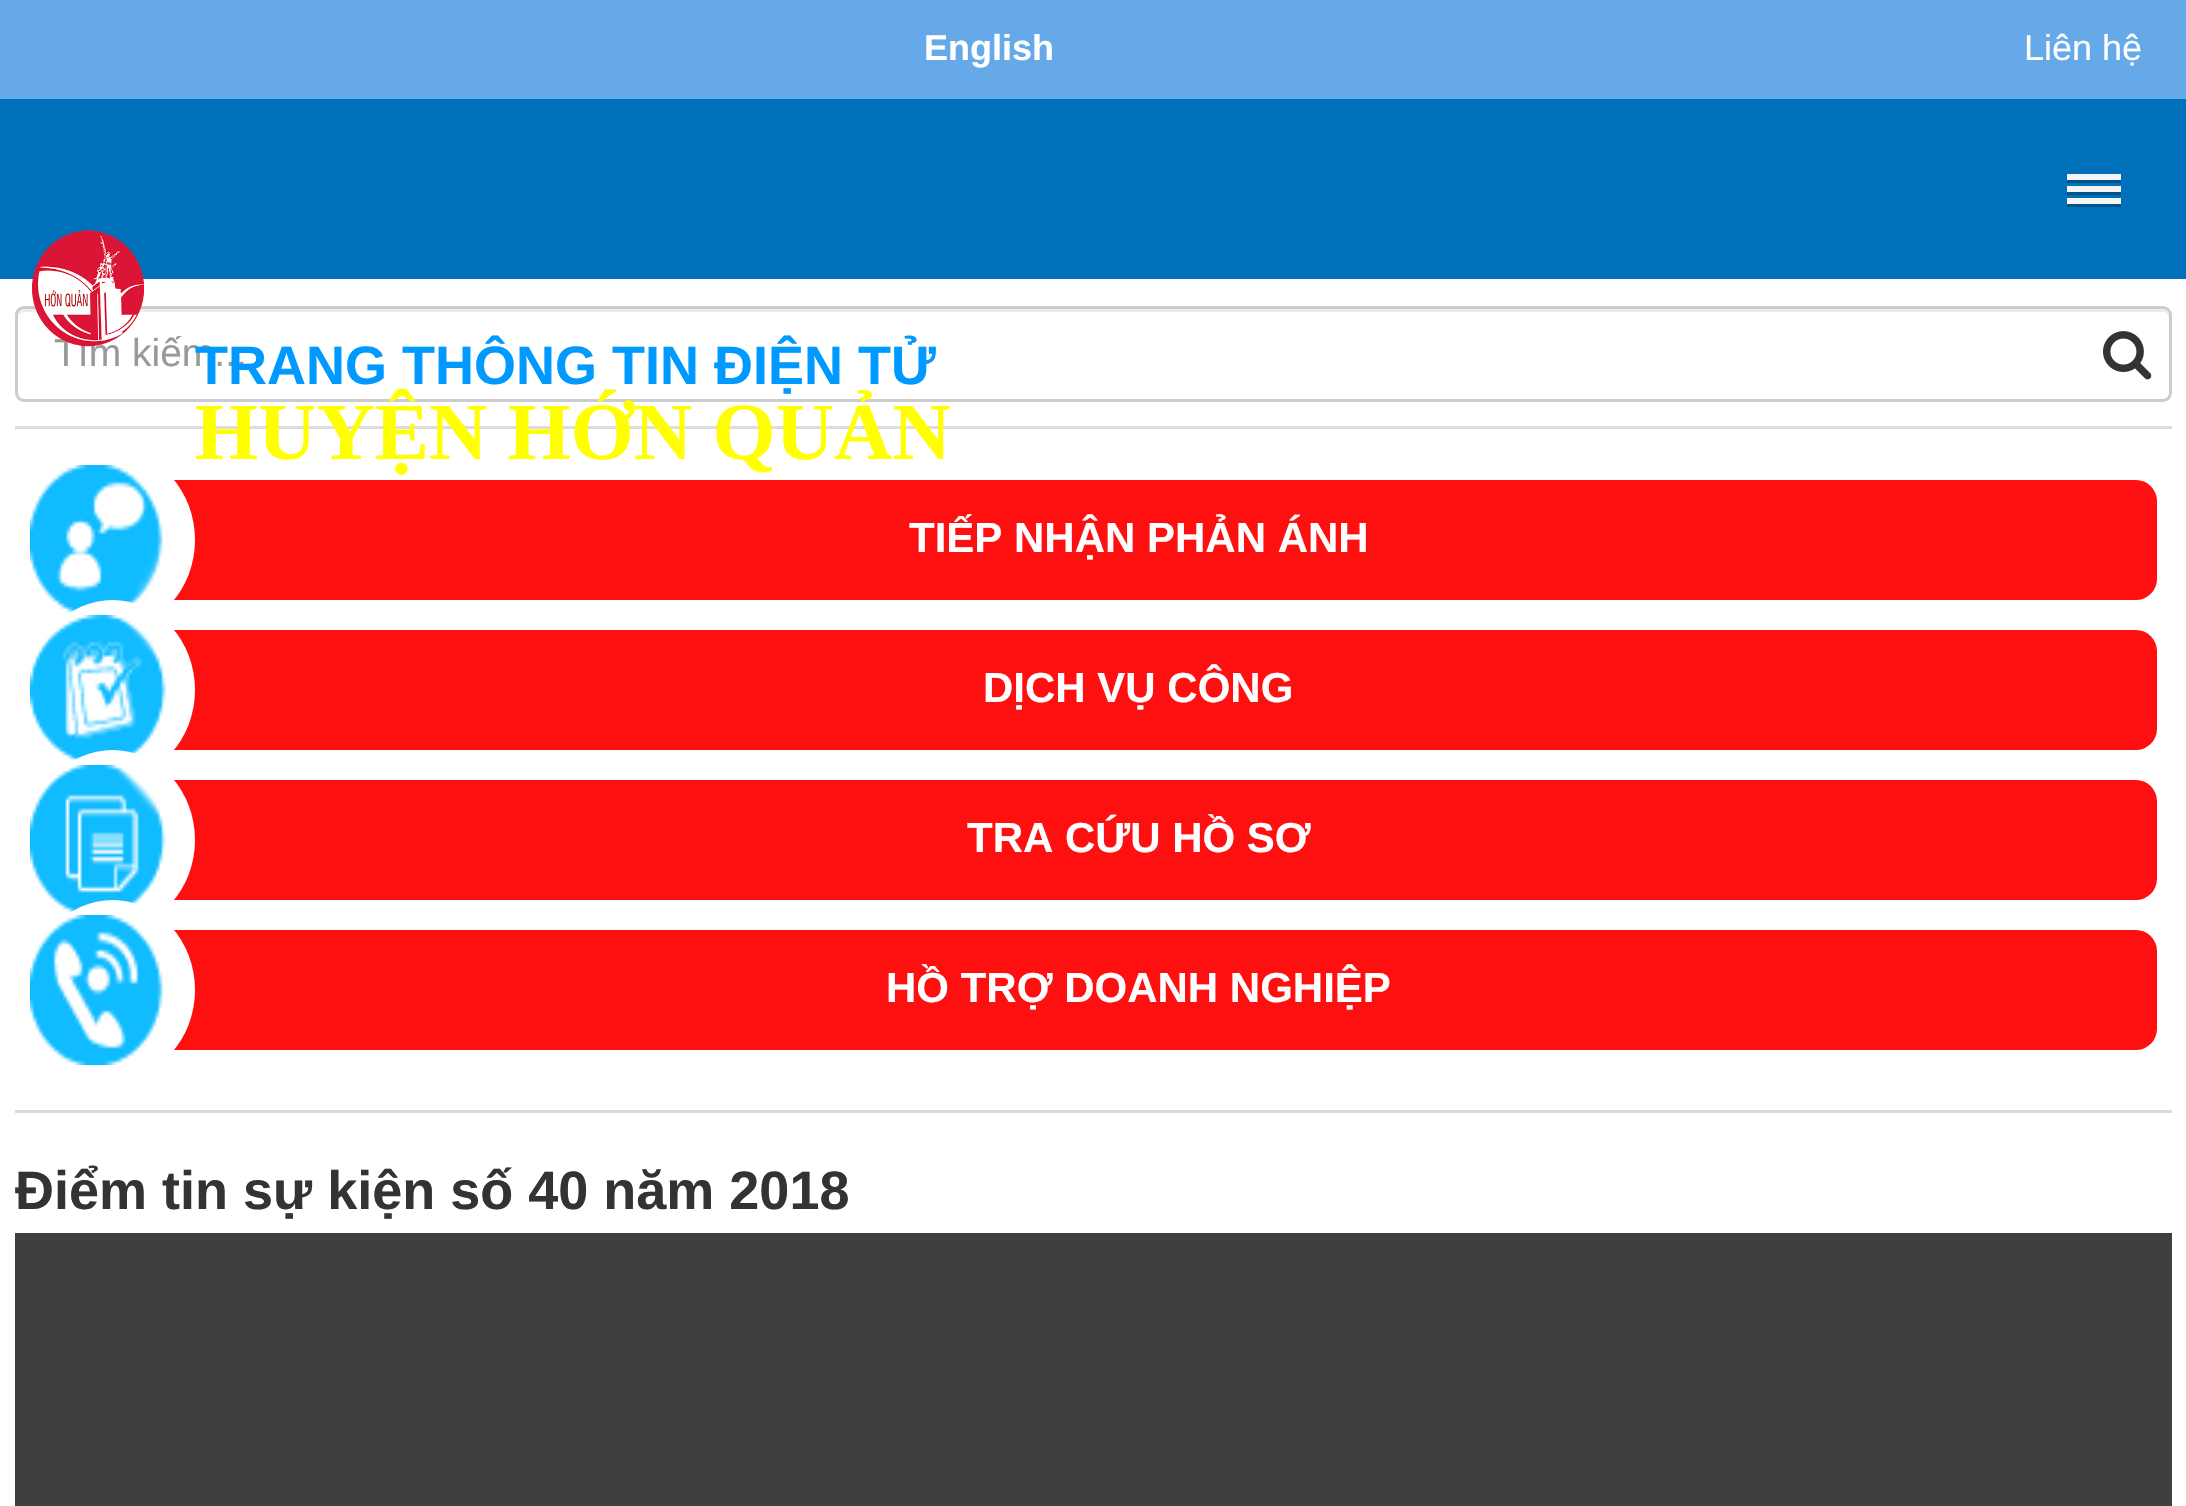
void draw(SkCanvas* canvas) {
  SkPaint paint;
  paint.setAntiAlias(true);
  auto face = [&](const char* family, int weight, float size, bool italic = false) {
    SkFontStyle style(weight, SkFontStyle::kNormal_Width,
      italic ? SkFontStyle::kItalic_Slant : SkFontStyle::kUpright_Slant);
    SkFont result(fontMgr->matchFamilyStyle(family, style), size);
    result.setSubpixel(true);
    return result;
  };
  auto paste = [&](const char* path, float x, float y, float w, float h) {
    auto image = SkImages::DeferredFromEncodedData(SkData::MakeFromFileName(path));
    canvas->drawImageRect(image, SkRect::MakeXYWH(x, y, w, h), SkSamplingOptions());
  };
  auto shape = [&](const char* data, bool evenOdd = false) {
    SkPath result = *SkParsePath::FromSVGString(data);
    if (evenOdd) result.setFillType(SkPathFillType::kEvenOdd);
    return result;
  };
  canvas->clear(0xff66a9e8);
  {
    const struct { float x, y, w, h; SkColor color; } items[] = {
      {0, 99, 2186, 180, 0xff0070bb},
      {2067, 180, 54, 3, 0xff00548c},
      {2067, 174, 54, 6, 0xfff5f5f5},
      {2067, 192, 54, 3, 0xff00548c},
      {2067, 186, 54, 6, 0xfff5f5f5},
      {2067, 204, 54, 3, 0xff00548c},
      {2067, 198, 54, 6, 0xfff5f5f5},
      {0, 279, 2186, 1227, 0xffffffff},
      {15, 426, 2157, 3, 0xffdcdcdc},
    };
    for (auto [x, y, w, h, color] : items) {
      paint.setColor(color);
      canvas->drawRect(SkRect::MakeXYWH(x, y, w, h), paint);
    }
  }
  paint.setColor(0xffececec);
  canvas->drawPath(shape("M24 312H2163C2166 312 2169 315 2169 318C2169 314 2168 309 2163 309H24C19 309 18 314 18 318C18 315 21 312 24 312Z"), paint);
  paint.setStroke(true);
  paint.setStrokeWidth(3);
  paint.setColor(0xffcccccc);
  canvas->drawRoundRect(SkRect::MakeXYWH(16.5f, 307.5f, 2154, 93), 7.5f, 7.5f, paint);
  paste("img/2.png", 2103, 331, 49, 49);
  paint.setStroke(false);
  paint.setColor(0xffd9d9d9);
  canvas->drawRect(SkRect::MakeXYWH(15, 1110, 2157, 3), paint);
  paint.setColor(0xffff1010);
  canvas->drawRoundRect(SkRect::MakeXYWH(120, 480, 2037, 120), 21, 21, paint);
  paint.setColor(0xffffffff);
  canvas->drawOval(SkRect::MakeXYWH(30, 450, 165, 180), paint);
  paste("img/3.png", 30, 465, 133, 150);
  paint.setColor(0xffff1010);
  canvas->drawRoundRect(SkRect::MakeXYWH(120, 630, 2037, 120), 21, 21, paint);
  paint.setColor(0xffffffff);
  canvas->drawOval(SkRect::MakeXYWH(30, 600, 165, 180), paint);
  paste("img/4.png", 30, 615, 136, 146);
  paint.setColor(0xffff1010);
  canvas->drawRoundRect(SkRect::MakeXYWH(120, 780, 2037, 120), 21, 21, paint);
  paint.setColor(0xffffffff);
  canvas->drawOval(SkRect::MakeXYWH(30, 750, 165, 180), paint);
  paste("img/5.png", 30, 765, 136, 148);
  paint.setColor(0xffff1010);
  canvas->drawRoundRect(SkRect::MakeXYWH(120, 930, 2037, 120), 21, 21, paint);
  paint.setColor(0xffffffff);
  canvas->drawOval(SkRect::MakeXYWH(30, 900, 165, 180), paint);
  paste("img/6.png", 30, 915, 133, 150);
  paint.setColor(0xff3f3f3f);
  canvas->drawRect(SkRect::MakeXYWH(15, 1233, 2157, 273), paint);
  auto f0 = face("Liberation Sans", 700, 36);
  paint.setColor(0xffffffff);
  canvas->drawString("English", 924, 60, f0, paint);
  auto f1 = face("Liberation Sans", 400, 36);
  canvas->drawString("Liên hệ", 2024, 60, f1, paint);
  auto f2 = face("Liberation Serif", 700, 81);
  paint.setColor(0xffffff00);
  canvas->drawString("HUYỆN HỚN QUẢN", 195, 459, f2, paint);
  auto f3 = face("Liberation Sans", 400, 39);
  paint.setColor(0xff999999);
  canvas->drawString("Tìm kiếm...", 54, 366, f3, paint);
  auto f4 = face("Liberation Sans", 700, 54);
  paint.setColor(0xff0099ff);
  canvas->drawString("TRANG THÔNG TIN ĐIỆN TỬ", 195, 384, f4, paint);
  paste("img/1.png", 32, 230, 112, 117);
  auto f5 = face("Liberation Sans", 700, 42);
  paint.setColor(0xffffffff);
  {
    const struct { const char* s; float x, y; } items[] = {
      {"TIẾP NHẬN PHẢN ÁNH", 909, 552},
      {"DỊCH VỤ CÔNG", 983, 702},
      {"TRA CỨU HỒ SƠ", 967, 852},
      {"HỒ TRỢ DOANH NGHIỆP", 886, 1002},
    };
    for (auto [s, x, y] : items) {
      canvas->drawString(s, x, y, f5, paint);
    }
  }
  paint.setColor(0xff333333);
  canvas->drawString("Điểm tin sự kiện số 40 năm 2018", 15, 1209, f4, paint);
}
